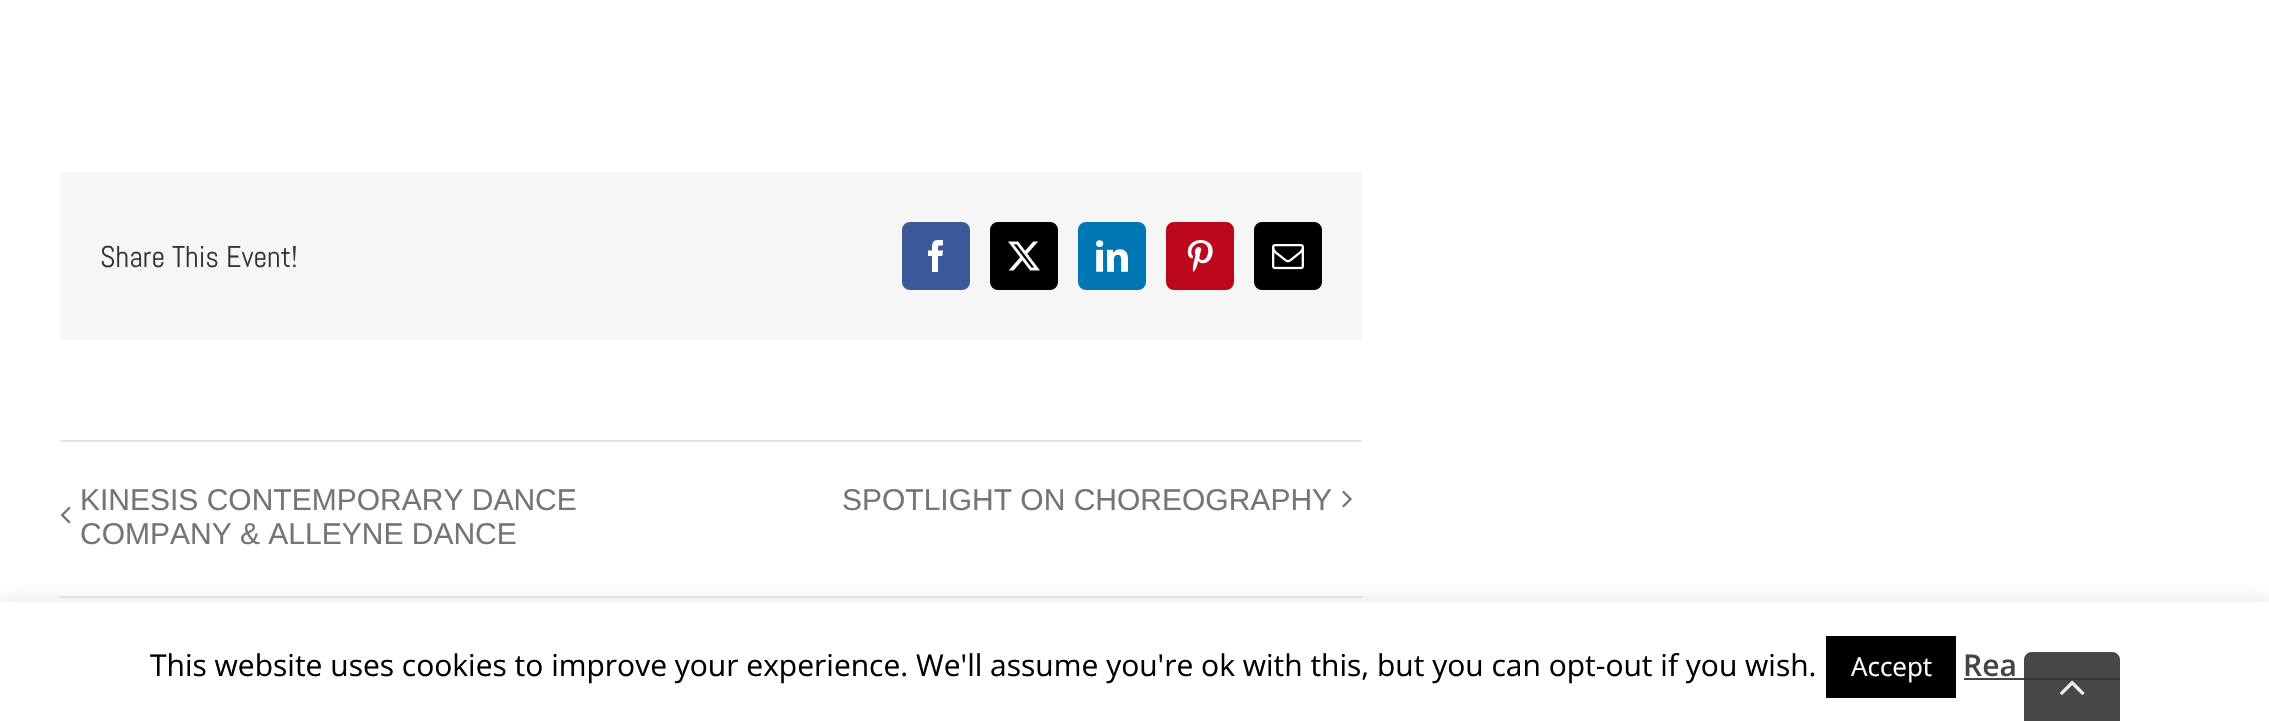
void draw(SkCanvas* canvas) {
  SkPaint paint;
  paint.setAntiAlias(true);
  auto face = [&](const char* family, int weight, float size, bool italic = false) {
    SkFontStyle style(weight, SkFontStyle::kNormal_Width,
      italic ? SkFontStyle::kItalic_Slant : SkFontStyle::kUpright_Slant);
    SkFont result(fontMgr->matchFamilyStyle(family, style), size);
    result.setSubpixel(true);
    return result;
  };
  auto paste = [&](const char* path, float x, float y, float w, float h) {
    auto image = SkImages::DeferredFromEncodedData(SkData::MakeFromFileName(path));
    canvas->drawImageRect(image, SkRect::MakeXYWH(x, y, w, h), SkSamplingOptions());
  };
  auto shape = [&](const char* data, bool evenOdd = false) {
    SkPath result = *SkParsePath::FromSVGString(data);
    if (evenOdd) result.setFillType(SkPathFillType::kEvenOdd);
    return result;
  };
  canvas->clear(0xffffffff);
  paint.setColor(0xfff6f6f6);
  canvas->drawRect(SkRect::MakeXYWH(60, 172, 1302, 168), paint);
  paint.setColor(0xff3b5998);
  canvas->drawRoundRect(SkRect::MakeXYWH(903, 223, 66, 66), 7, 7, paint);
  paint.setStroke(true);
  paint.setStrokeWidth(2);
  canvas->drawRoundRect(SkRect::MakeXYWH(903, 223, 66, 66), 7, 7, paint);
  paste("img/1.png", 928, 240, 15, 32);
  paint.setStroke(false);
  paint.setColor(0xff000000);
  canvas->drawRoundRect(SkRect::MakeXYWH(991, 223, 66, 66), 7, 7, paint);
  paint.setStroke(true);
  canvas->drawRoundRect(SkRect::MakeXYWH(991, 223, 66, 66), 7, 7, paint);
  paste("img/2.png", 1008, 241, 32, 30);
  paint.setStroke(false);
  paint.setColor(0xff0077b5);
  canvas->drawRoundRect(SkRect::MakeXYWH(1079, 223, 66, 66), 7, 7, paint);
  paint.setStroke(true);
  canvas->drawRoundRect(SkRect::MakeXYWH(1079, 223, 66, 66), 7, 7, paint);
  paste("img/3.png", 1096, 240, 32, 32);
  paint.setStroke(false);
  paint.setColor(0xffbd081c);
  canvas->drawRoundRect(SkRect::MakeXYWH(1167, 223, 66, 66), 7, 7, paint);
  paint.setStroke(true);
  canvas->drawRoundRect(SkRect::MakeXYWH(1167, 223, 66, 66), 7, 7, paint);
  paste("img/4.png", 1187, 240, 26, 32);
  paint.setStroke(false);
  paint.setColor(0xff000000);
  canvas->drawRoundRect(SkRect::MakeXYWH(1255, 223, 66, 66), 7, 7, paint);
  paint.setStroke(true);
  canvas->drawRoundRect(SkRect::MakeXYWH(1255, 223, 66, 66), 7, 7, paint);
  paste("img/5.png", 1272, 244, 32, 26);
  paint.setStroke(false);
  paint.setColor(0xffe7e4e2);
  canvas->drawRect(SkRect::MakeXYWH(60, 440, 1302, 2), paint);
  canvas->drawRect(SkRect::MakeXYWH(60, 596, 1302, 2), paint);
  paste("img/6.png", 60, 506, 11, 18);
  paste("img/7.png", 1342, 490, 10, 18);
  canvas->save();
  canvas->clipRect(SkRect::MakeXYWH(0, 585, 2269, 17));
  paint.setColor(0x4dacabab);
  paint.setMaskFilter(SkMaskFilter::MakeBlur(kNormal_SkBlurStyle, 10));
  canvas->drawRect(SkRect::MakeXYWH(0, 600, 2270, 120), paint);
  paint.setMaskFilter(nullptr);
  canvas->restore();
  paint.setColor(0xff000000);
  canvas->drawRect(SkRect::MakeXYWH(1826, 636, 130, 62), paint);
  paint.setColor(0xff444444);
  canvas->drawRect(SkRect::MakeXYWH(1964, 678, 156, 2), paint);
  paint.setColor(0xe6333333);
  canvas->drawPath(shape("M2032 652H2112C2116.5 652 2120 655.5 2120 660V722H2024V660C2024 655.5 2027.5 652 2032 652Z"), paint);
  paste("img/8.png", 2060, 680, 25, 15);
  auto f0 = face("Abel", 400, 30);
  paint.setColor(0xff333333);
  canvas->drawString("Share This Event!", 100, 267, f0, paint);
  auto f1 = face("Liberation Sans", 400, 30);
  paint.setColor(0xff757575);
  {
    const struct { const char* s; float x, y; } items[] = {
      {"KINESIS CONTEMPORARY DANCE", 80, 510},
      {"COMPANY & ALLEYNE DANCE", 80, 544},
      {"SPOTLIGHT ON CHOREOGRAPHY", 842, 510},
    };
    for (auto [s, x, y] : items) {
      canvas->drawString(s, x, y, f1, paint);
    }
  }
  auto f2 = face("Open Sans", 400, 30);
  paint.setColor(0xff000000);
  canvas->drawString("This website uses cookies to improve your experience. We'll assume you're ok with this, but you can opt-out if you wish.", 150, 676, f2, paint);
  auto f3 = face("Open Sans", 400, 26);
  paint.setColor(0xffffffff);
  canvas->drawString("Accept", 1851, 676, f3, paint);
  auto f4 = face("Open Sans", 600, 30);
  paint.setColor(0xff444444);
  canvas->drawString("Rea", 1963, 676, f4, paint);
}
